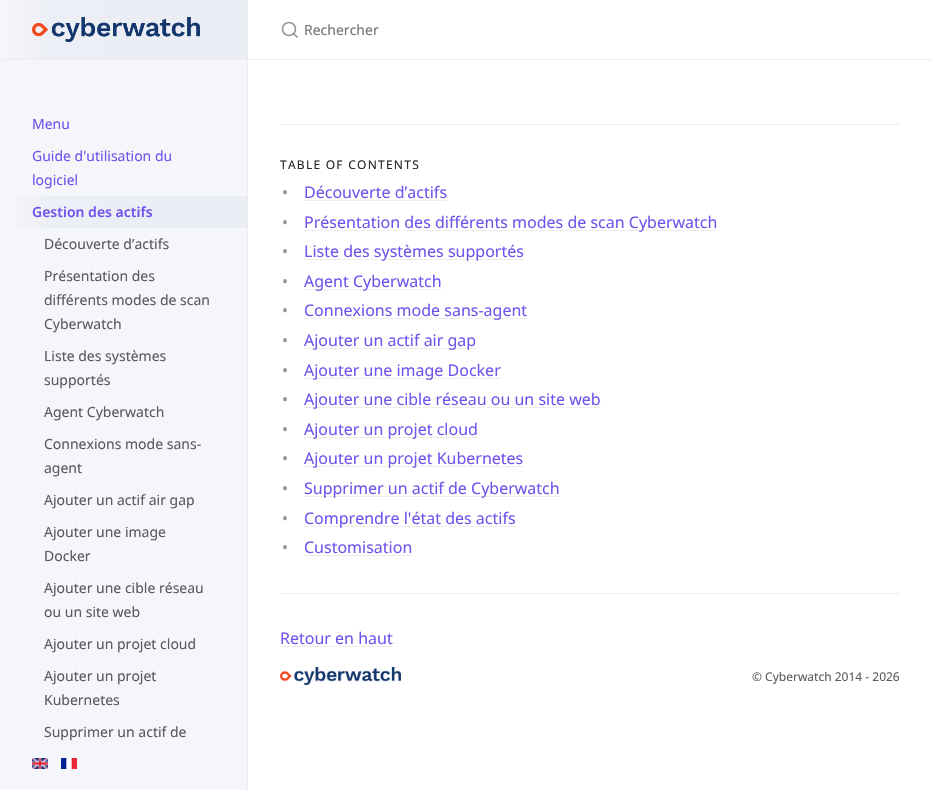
void draw(SkCanvas* canvas) {
  SkPaint paint;
  paint.setAntiAlias(true);
  auto face = [&](const char* family, int weight, float size, bool italic = false) {
    SkFontStyle style(weight, SkFontStyle::kNormal_Width,
      italic ? SkFontStyle::kItalic_Slant : SkFontStyle::kUpright_Slant);
    SkFont result(fontMgr->matchFamilyStyle(family, style), size);
    result.setSubpixel(true);
    return result;
  };
  auto writeSpaced = [&](const char* s, float x, float y, const SkFont& font, const SkPaint& ink, float letter, float word) {
    std::vector<SkGlyphID> glyphs(font.countText(s, strlen(s), SkTextEncoding::kUTF8));
    std::vector<float> xs(glyphs.size());
    font.textToGlyphs(s, strlen(s), SkTextEncoding::kUTF8, glyphs);
    font.getXPos(glyphs, xs, x);
    float extra = 0;
    for (size_t i = 0; i < glyphs.size(); i++) {
      xs[i] += extra;
      extra += letter + word * (glyphs[i] == font.unicharToGlyph(' '));
    }
    canvas->drawTextBlob(SkTextBlob::MakeFromPosHGlyphs(glyphs, xs, y, font), 0, 0, ink);
  };
  auto paste = [&](const char* path, float x, float y, float w, float h) {
    auto image = SkImages::DeferredFromEncodedData(SkData::MakeFromFileName(path));
    canvas->drawImageRect(image, SkRect::MakeXYWH(x, y, w, h), SkSamplingOptions());
  };
  auto shape = [&](const char* data, bool evenOdd = false) {
    SkPath result = *SkParsePath::FromSVGString(data);
    if (evenOdd) result.setFillType(SkPathFillType::kEvenOdd);
    return result;
  };
  canvas->clear(0xffffffff);
  {
    const struct { float x, y, w, h; SkColor color; } items[] = {
      {0, 60, 247, 730, 0xfff5f6fa},
      {247, 0, 1, 790, 0xffeeebee},
      {0, 59, 247, 1, 0xffeeebee},
    };
    for (auto [x, y, w, h, color] : items) {
      paint.setColor(color);
      canvas->drawRect(SkRect::MakeXYWH(x, y, w, h), paint);
    }
  }
  {
    const SkColor colors[] = {0xffebedf5, 0xffedeff6, 0xfff5f6fa};
    const float stops[] = {0, 0.8f, 1};
    const SkPoint ends[] = {{247, 30}, {0, 29}};
    paint.setShader(SkGradientShader::MakeLinear(ends, colors, stops, 3, SkTileMode::kClamp));
    paint.setAlpha(255);
  }
  canvas->drawRect(SkRect::MakeXYWH(0, 0, 247, 59), paint);
  paste("img/1.png", 32, 17, 168, 25);
  {
    const SkColor colors[] = {0xffebedf5, 0xffedeff6, 0xfff5f6fa};
    const float stops[] = {0, 0.8f, 1};
    const SkPoint ends[] = {{247, 212}, {0, 212}};
    paint.setShader(SkGradientShader::MakeLinear(ends, colors, stops, 3, SkTileMode::kClamp));
    paint.setAlpha(255);
  }
  canvas->drawRect(SkRect::MakeXYWH(15, 196, 232, 32), paint);
  paste("img/2.png", 32, 758, 16, 11);
  paste("img/3.png", 61, 758, 16, 11);
  paint.setShader(nullptr);
  paint.setColor(0xffeeebee);
  canvas->drawRect(SkRect::MakeXYWH(248, 59, 684, 1), paint);
  paint.setStroke(true);
  paint.setStrokeWidth(1.6f);
  paint.setColor(0xff959396);
  canvas->drawCircle(289, 29, 6.5f, paint);
  paint.setStrokeCap(SkPaint::kRound_Cap);
  paint.setStrokeJoin(SkPaint::kRound_Join);
  canvas->drawPath(shape("M297 37L293.5 33.5"), paint);
  paint.setStroke(false);
  {
    const struct { float x, y, w, h; SkColor color; } items[] = {
      {280, 124, 620, 1, 0xffeeebee},
      {304, 200, 143, 1, 0xffeeebee},
      {304, 230, 413, 1, 0xffeeebee},
      {304, 259, 220, 1, 0xffeeebee},
      {304, 289, 138, 1, 0xffeeebee},
      {304, 318, 223, 1, 0xffeeebee},
      {304, 348, 172, 1, 0xffeeebee},
      {304, 378, 197, 1, 0xffeeebee},
      {304, 407, 297, 1, 0xffeeebee},
      {304, 437, 174, 1, 0xffeeebee},
      {304, 466, 219, 1, 0xffeeebee},
      {304, 496, 256, 1, 0xffeeebee},
      {304, 526, 212, 1, 0xffeeebee},
      {304, 555, 108, 1, 0xffeeebee},
      {280, 593, 620, 1, 0xffeeebee},
      {280, 646, 113, 1, 0xffeeebee},
    };
    for (auto [x, y, w, h, color] : items) {
      paint.setColor(color);
      canvas->drawRect(SkRect::MakeXYWH(x, y, w, h), paint);
    }
  }
  paste("img/4.png", 280, 667, 121, 18);
  auto f0 = face("Noto Sans", 400, 14);
  paint.setColor(0xff7253ed);
  {
    const struct { const char* s; float x, y; } items[] = {
      {"Menu", 32, 129},
      {"Guide d'utilisation du", 32, 161},
      {"logiciel", 32, 185},
    };
    for (auto [s, x, y] : items) {
      canvas->drawString(s, x, y, f0, paint);
    }
  }
  auto f1 = face("Noto Sans", 600, 14);
  canvas->drawString("Gestion des actifs", 32, 217, f1, paint);
  paint.setColor(0xff5c5962);
  {
    const struct { const char* s; float x, y; } items[] = {
      {"Découverte d’actifs", 44, 249},
      {"Présentation des", 44, 281},
      {"différents modes de scan", 44, 305},
      {"Cyberwatch", 44, 329},
      {"Liste des systèmes", 44, 361},
      {"supportés", 44, 385},
      {"Agent Cyberwatch", 44, 417},
      {"Connexions mode sans-", 44, 449},
      {"agent", 44, 473},
      {"Ajouter un actif air gap", 44, 505},
      {"Ajouter une image", 44, 537},
      {"Docker", 44, 561},
      {"Ajouter une cible réseau", 44, 593},
      {"ou un site web", 44, 617},
      {"Ajouter un projet cloud", 44, 649},
      {"Ajouter un projet", 44, 681},
      {"Kubernetes", 44, 705},
      {"Supprimer un actif de", 44, 737},
    };
    for (auto [s, x, y] : items) {
      canvas->drawString(s, x, y, f0, paint);
    }
  }
  paint.setColor(0xff757575);
  canvas->drawString("Rechercher", 304, 35, f0, paint);
  auto f2 = face("Noto Sans", 400, 12);
  paint.setColor(0xff27262b);
  writeSpaced("TABLE OF CONTENTS", 280, 169, f2, paint, 1.25f, 0);
  auto f3 = face("Noto Sans", 400, 16);
  paint.setColor(0xff959396);
  canvas->drawString("•", 282, 198, f3, paint);
  paint.setColor(0xff7253ed);
  canvas->drawString("Découverte d’actifs", 304, 198, f3, paint);
  paint.setColor(0xff959396);
  canvas->drawString("•", 282, 228, f3, paint);
  paint.setColor(0xff7253ed);
  canvas->drawString("Présentation des différents modes de scan Cyberwatch", 304, 228, f3, paint);
  paint.setColor(0xff959396);
  canvas->drawString("•", 282, 257, f3, paint);
  paint.setColor(0xff7253ed);
  canvas->drawString("Liste des systèmes supportés", 304, 257, f3, paint);
  paint.setColor(0xff959396);
  canvas->drawString("•", 282, 287, f3, paint);
  paint.setColor(0xff7253ed);
  canvas->drawString("Agent Cyberwatch", 304, 287, f3, paint);
  paint.setColor(0xff959396);
  canvas->drawString("•", 282, 316, f3, paint);
  paint.setColor(0xff7253ed);
  canvas->drawString("Connexions mode sans-agent", 304, 316, f3, paint);
  paint.setColor(0xff959396);
  canvas->drawString("•", 282, 346, f3, paint);
  paint.setColor(0xff7253ed);
  canvas->drawString("Ajouter un actif air gap", 304, 346, f3, paint);
  paint.setColor(0xff959396);
  canvas->drawString("•", 282, 376, f3, paint);
  paint.setColor(0xff7253ed);
  canvas->drawString("Ajouter une image Docker", 304, 376, f3, paint);
  paint.setColor(0xff959396);
  canvas->drawString("•", 282, 405, f3, paint);
  paint.setColor(0xff7253ed);
  canvas->drawString("Ajouter une cible réseau ou un site web", 304, 405, f3, paint);
  paint.setColor(0xff959396);
  canvas->drawString("•", 282, 435, f3, paint);
  paint.setColor(0xff7253ed);
  canvas->drawString("Ajouter un projet cloud", 304, 435, f3, paint);
  paint.setColor(0xff959396);
  canvas->drawString("•", 282, 464, f3, paint);
  paint.setColor(0xff7253ed);
  canvas->drawString("Ajouter un projet Kubernetes", 304, 464, f3, paint);
  paint.setColor(0xff959396);
  canvas->drawString("•", 282, 494, f3, paint);
  paint.setColor(0xff7253ed);
  canvas->drawString("Supprimer un actif de Cyberwatch", 304, 494, f3, paint);
  paint.setColor(0xff959396);
  canvas->drawString("•", 282, 524, f3, paint);
  paint.setColor(0xff7253ed);
  canvas->drawString("Comprendre l'état des actifs", 304, 524, f3, paint);
  paint.setColor(0xff959396);
  canvas->drawString("•", 282, 553, f3, paint);
  paint.setColor(0xff7253ed);
  canvas->drawString("Customisation", 304, 553, f3, paint);
  canvas->drawString("Retour en haut", 280, 644, f3, paint);
  paint.setColor(0xff5c5962);
  canvas->drawString("© Cyberwatch 2014 - 2026", 752, 681, f2, paint);
}
